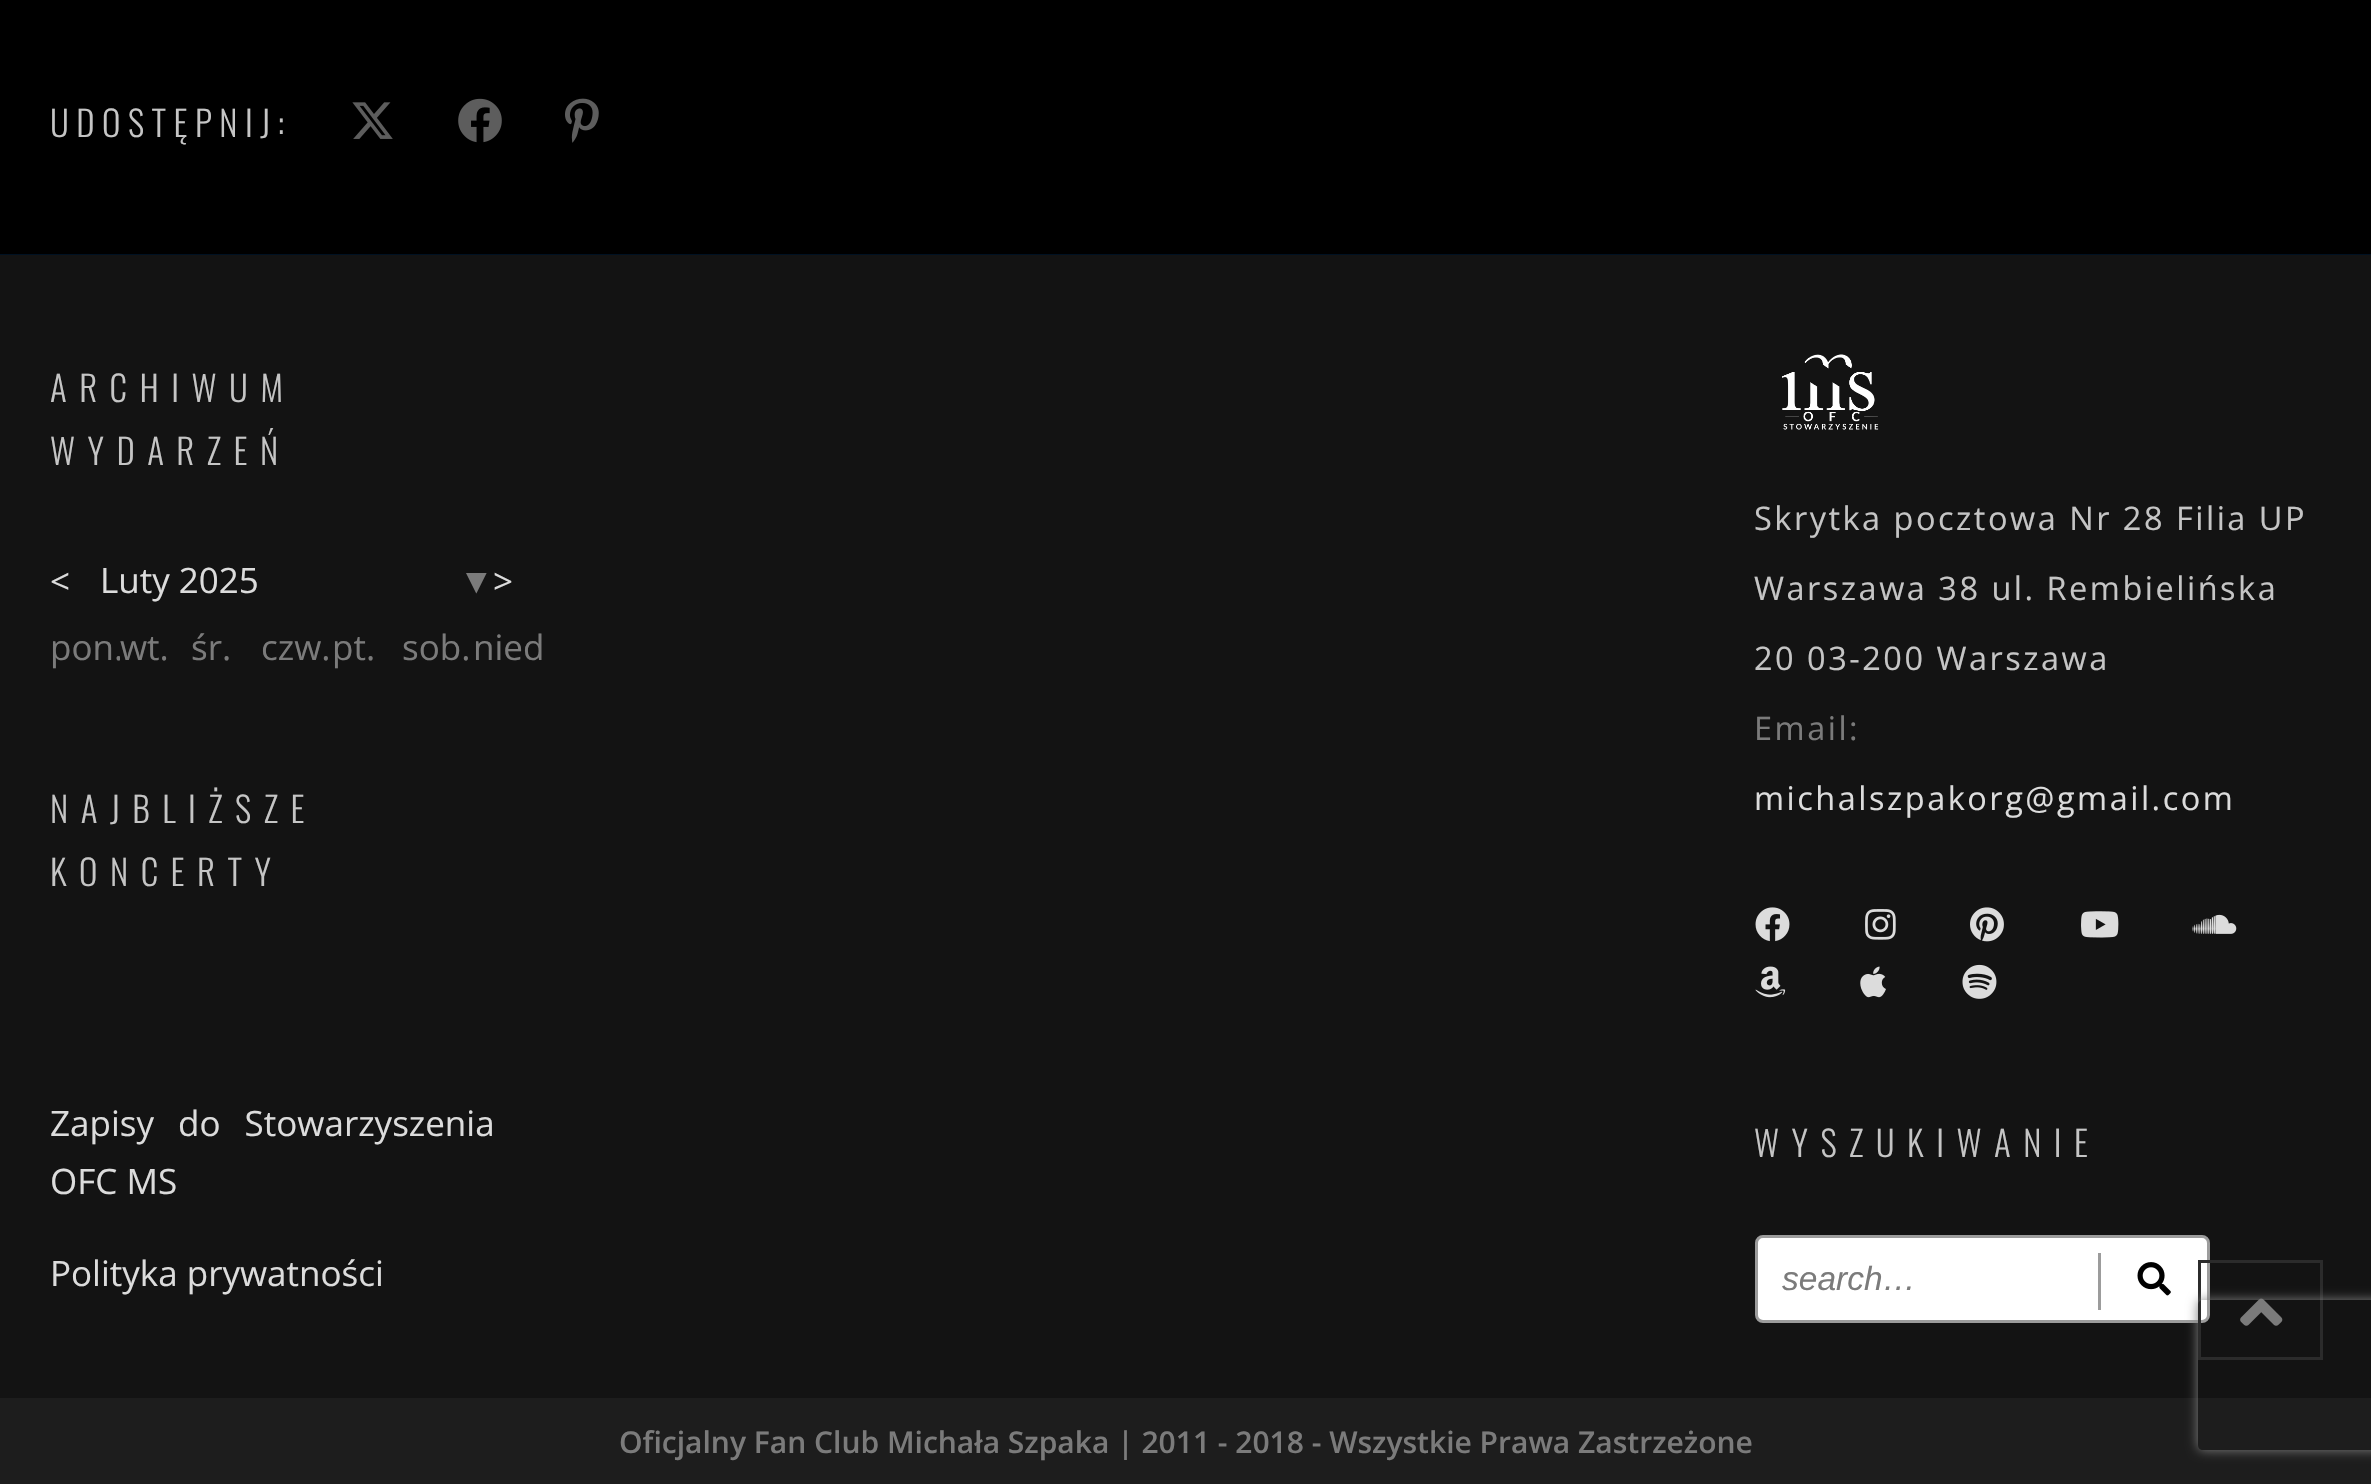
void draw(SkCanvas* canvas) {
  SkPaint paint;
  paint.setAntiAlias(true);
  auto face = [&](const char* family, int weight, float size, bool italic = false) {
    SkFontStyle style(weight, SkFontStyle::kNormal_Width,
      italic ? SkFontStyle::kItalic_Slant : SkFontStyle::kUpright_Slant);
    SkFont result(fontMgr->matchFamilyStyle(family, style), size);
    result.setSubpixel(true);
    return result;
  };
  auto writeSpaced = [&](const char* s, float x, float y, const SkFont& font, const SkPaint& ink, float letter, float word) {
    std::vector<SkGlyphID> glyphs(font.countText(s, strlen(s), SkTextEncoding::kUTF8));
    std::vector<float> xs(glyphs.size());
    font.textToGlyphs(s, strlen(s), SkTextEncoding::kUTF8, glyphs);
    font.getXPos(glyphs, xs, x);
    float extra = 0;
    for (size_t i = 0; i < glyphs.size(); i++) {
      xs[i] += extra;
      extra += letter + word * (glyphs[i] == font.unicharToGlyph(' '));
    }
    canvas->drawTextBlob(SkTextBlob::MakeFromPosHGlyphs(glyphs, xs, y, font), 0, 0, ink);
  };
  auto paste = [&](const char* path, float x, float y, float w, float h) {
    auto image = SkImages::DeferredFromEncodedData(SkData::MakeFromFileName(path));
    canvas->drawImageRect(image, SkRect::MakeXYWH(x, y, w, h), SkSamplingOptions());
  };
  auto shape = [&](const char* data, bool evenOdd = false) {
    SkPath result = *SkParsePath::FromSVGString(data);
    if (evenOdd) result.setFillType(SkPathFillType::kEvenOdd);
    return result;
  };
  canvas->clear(0xff000000);
  paste("img/1.png", 352, 102, 41, 37);
  paste("img/2.png", 458, 98, 44, 45);
  paste("img/3.png", 565, 98, 34, 45);
  paint.setColor(0xff001122);
  canvas->drawRect(SkRect::MakeXYWH(0, 254, 2371, 1), paint);
  paint.setColor(0xff131313);
  canvas->drawRect(SkRect::MakeXYWH(0, 255, 2371, 1143), paint);
  paste("img/4.png", 1782, 354, 97, 76);
  paste("img/5.png", 1755, 907, 35, 35);
  paste("img/6.png", 1865, 909, 31, 31);
  paste("img/7.png", 1970, 907, 34, 35);
  paste("img/8.png", 2081, 911, 38, 27);
  paste("img/9.png", 2192, 914, 45, 20);
  paste("img/10.png", 1755, 966, 31, 32);
  paste("img/11.png", 1860, 966, 26, 32);
  paste("img/12.png", 1962, 964, 35, 35);
  paint.setColor(0xffffffff);
  canvas->drawRoundRect(SkRect::MakeXYWH(1756.5f, 1236.5f, 452, 85), 6.5f, 6.5f, paint);
  paint.setStroke(true);
  paint.setStrokeWidth(3);
  paint.setColor(0xff9c9c9c);
  canvas->drawRoundRect(SkRect::MakeXYWH(1756.5f, 1236.5f, 452, 85), 6.5f, 6.5f, paint);
  paint.setStroke(false);
  canvas->drawRect(SkRect::MakeXYWH(2098, 1253, 3, 57), paint);
  paste("img/13.png", 2137, 1262, 34, 34);
  paint.setStroke(true);
  paint.setColor(0xff2b2b2b);
  canvas->drawRect(SkRect::MakeXYWH(2199.5f, 1261.5f, 122, 97), paint);
  paste("img/14.png", 2240, 1298, 43, 28);
  paint.setStroke(false);
  paint.setColor(0xff1d1d1d);
  canvas->drawRect(SkRect::MakeXYWH(0, 1398, 2371, 86), paint);
  canvas->save();
  canvas->clipPath(shape("M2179 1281H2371V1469H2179ZM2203 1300H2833C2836 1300 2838 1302 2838 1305V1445C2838 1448 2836 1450 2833 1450H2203C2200 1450 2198 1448 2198 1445V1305C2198 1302 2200 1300 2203 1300Z", true), true);
  paint.setColor(0xff808080);
  paint.setMaskFilter(SkMaskFilter::MakeBlur(kNormal_SkBlurStyle, 6));
  canvas->drawRoundRect(SkRect::MakeXYWH(2198, 1300, 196, 150), 5, 5, paint);
  paint.setMaskFilter(nullptr);
  canvas->restore();
  auto f0 = face("Oswald", 300, 35);
  paint.setColor(0xffc5c5c5);
  writeSpaced("UDOSTĘPNIJ:", 50, 137, f0, paint, 7.5f, 0);
  writeSpaced("ARCHIWUM", 50, 402, f0, paint, 12.5f, 0);
  writeSpaced("WYDARZEŃ", 50, 465, f0, paint, 12.5f, 0);
  auto f1 = face("Open Sans", 400, 35);
  paint.setColor(0xffdcdcdc);
  canvas->drawString("<", 50, 594, f1, paint);
  canvas->drawString("Luty 2025", 100, 593, f1, paint);
  auto f2 = face("Liberation Sans", 400, 35);
  paint.setColor(0xff7b7b7b);
  canvas->drawString("▼", 459, 593, f2, paint);
  paint.setColor(0xffdcdcdc);
  canvas->drawString(">", 493, 594, f1, paint);
  canvas->save();
  canvas->clipRect(SkRect::MakeXYWH(50, 618, 70, 57));
  paint.setColor(0xff7b7b7b);
  canvas->drawString("pon.", 50, 660, f1, paint);
  canvas->restore();
  {
    const struct { const char* s; float x, y; } items[] = {
      {"wt.", 120, 660},
      {"śr.", 191, 660},
      {"czw.", 261, 660},
      {"pt.", 332, 660},
      {"sob.", 402, 660},
      {"nied", 473, 660},
    };
    for (auto [s, x, y] : items) {
      canvas->drawString(s, x, y, f1, paint);
    }
  }
  paint.setColor(0xffc5c5c5);
  writeSpaced("NAJBLIŻSZE", 50, 823, f0, paint, 12.5f, 0);
  writeSpaced("KONCERTY", 50, 886, f0, paint, 12.5f, 0);
  paint.setColor(0xffdcdcdc);
  writeSpaced("Zapisy do Stowarzyszenia", 50, 1136, f1, paint, 0, 15);
  canvas->drawString("OFC MS", 50, 1194, f1, paint);
  canvas->drawString("Polityka prywatności", 50, 1286, f1, paint);
  auto f3 = face("Open Sans", 400, 32.5f);
  paint.setColor(0xffc5c5c5);
  {
    const struct { const char* s; float x, y; } items[] = {
      {"Skrytka pocztowa Nr 28 Filia UP", 1754, 530},
      {"Warszawa 38 ul. Rembielińska", 1754, 600},
      {"20 03-200 Warszawa", 1754, 670},
    };
    for (auto [s, x, y] : items) {
      writeSpaced(s, x, y, f3, paint, 2.5f, 0);
    }
  }
  paint.setColor(0xff7b7b7b);
  writeSpaced("Email:", 1754, 740, f3, paint, 2.5f, 0);
  paint.setColor(0xffdcdcdc);
  writeSpaced("michalszpakorg@gmail.com", 1754, 810, f3, paint, 2.5f, 0);
  paint.setColor(0xffc5c5c5);
  writeSpaced("WYSZUKIWANIE", 1754, 1157, f0, paint, 12.5f, 0);
  auto f4 = face("Liberation Sans", 400, 33.5f, true);
  paint.setColor(0xff7b7b7b);
  canvas->drawString("search…", 1782, 1290, f4, paint);
  auto f5 = face("Open Sans", 600, 30);
  canvas->drawString("Oficjalny Fan Club Michała Szpaka | 2011 - 2018 - Wszystkie Prawa Zastrzeżone", 619, 1453, f5, paint);
}
